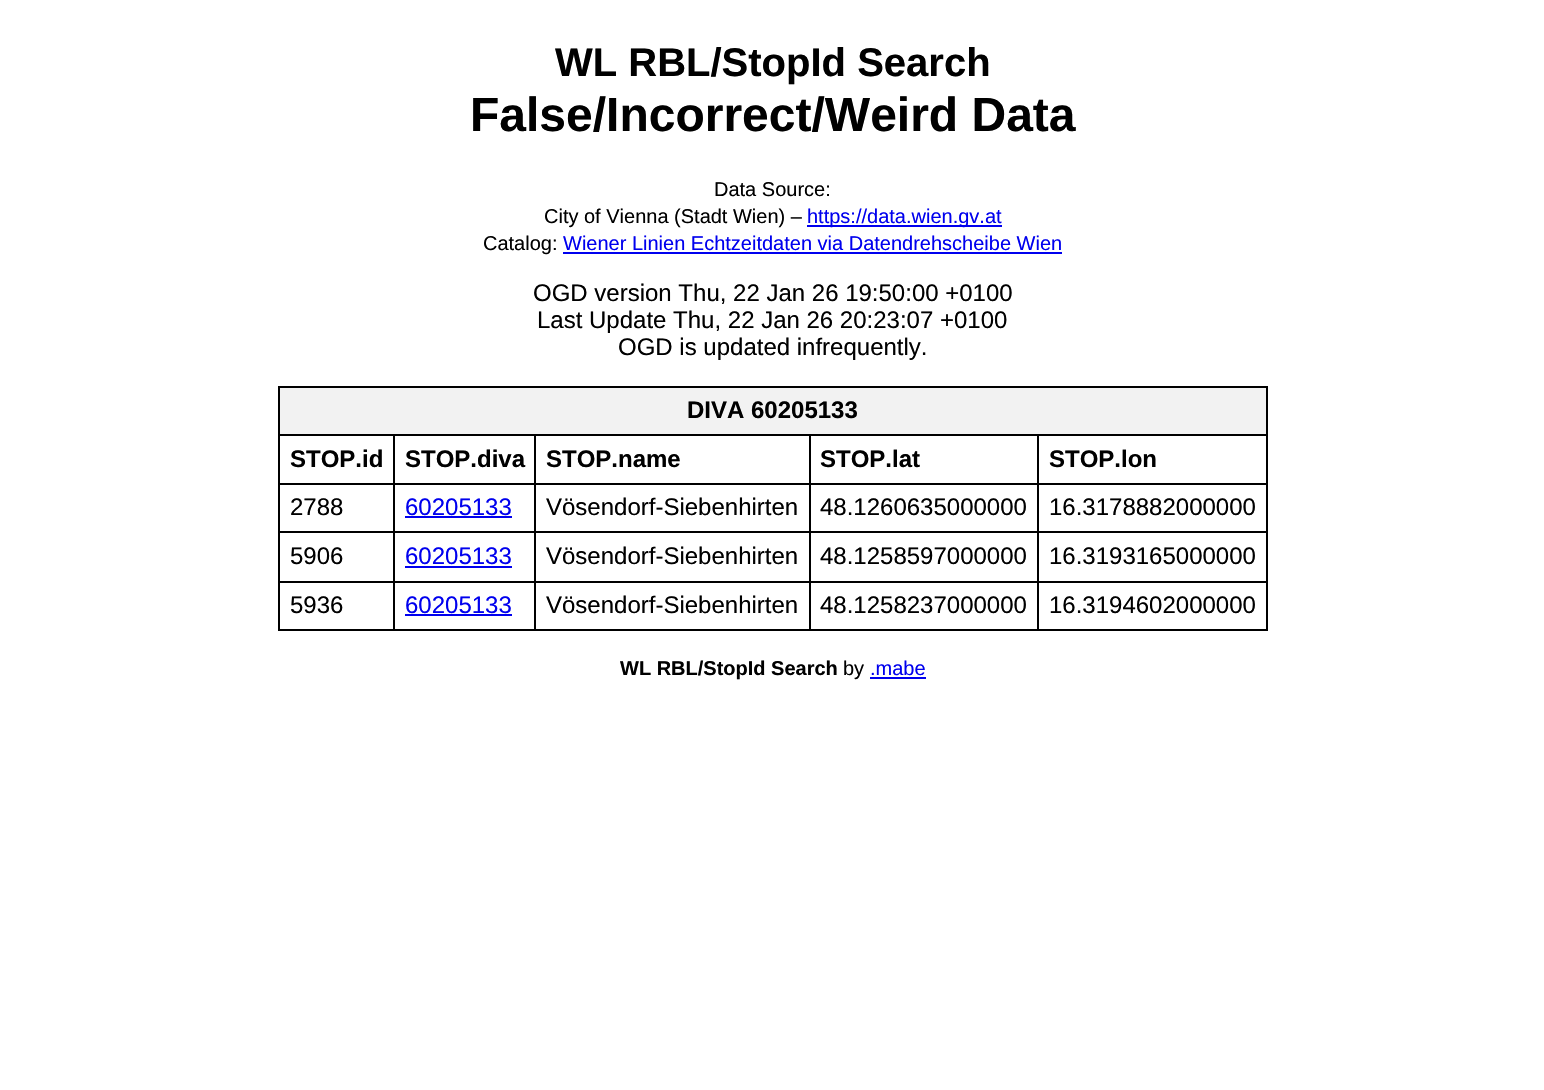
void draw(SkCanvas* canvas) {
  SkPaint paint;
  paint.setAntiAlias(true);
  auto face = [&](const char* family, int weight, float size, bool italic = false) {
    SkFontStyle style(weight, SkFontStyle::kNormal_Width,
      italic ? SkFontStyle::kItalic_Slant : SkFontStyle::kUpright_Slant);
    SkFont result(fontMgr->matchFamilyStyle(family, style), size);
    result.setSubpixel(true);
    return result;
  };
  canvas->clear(0xffffffff);
  {
    const struct { float x, y, w, h; SkColor color; } items[] = {
      {807, 225, 195, 2, 0xff0000ee},
      {563, 252, 499, 2, 0xff0000ee},
      {278, 386, 990, 2, 0xff000000},
      {1266, 386, 2, 244, 0xff000000},
      {278, 629, 990, 2, 0xff000000},
      {278, 386, 2, 244, 0xff000000},
      {280, 388, 986, 46, 0xfff2f2f2},
      {1037, 434, 231, 2, 0xff000000},
      {1037, 483, 231, 2, 0xff000000},
      {1037, 531, 231, 2, 0xff000000},
      {1037, 581, 231, 2, 0xff000000},
      {1037, 581, 2, 49, 0xff000000},
      {809, 581, 229, 2, 0xff000000},
      {1037, 531, 2, 51, 0xff000000},
      {809, 531, 229, 2, 0xff000000},
      {1037, 483, 2, 50, 0xff000000},
      {809, 483, 229, 2, 0xff000000},
      {1037, 434, 2, 51, 0xff000000},
      {809, 434, 229, 2, 0xff000000},
      {809, 581, 2, 49, 0xff000000},
      {534, 581, 276, 2, 0xff000000},
      {809, 531, 2, 51, 0xff000000},
      {534, 531, 276, 2, 0xff000000},
      {809, 483, 2, 50, 0xff000000},
      {534, 483, 276, 2, 0xff000000},
      {809, 434, 2, 51, 0xff000000},
      {534, 434, 276, 2, 0xff000000},
      {534, 581, 2, 49, 0xff000000},
      {393, 581, 143, 2, 0xff000000},
      {534, 531, 2, 51, 0xff000000},
      {393, 531, 143, 2, 0xff000000},
      {534, 483, 2, 50, 0xff000000},
      {393, 483, 143, 2, 0xff000000},
      {534, 434, 2, 51, 0xff000000},
      {393, 434, 143, 2, 0xff000000},
      {393, 581, 2, 49, 0xff000000},
      {278, 581, 117, 2, 0xff000000},
      {393, 531, 2, 51, 0xff000000},
      {278, 531, 117, 2, 0xff000000},
      {393, 483, 2, 50, 0xff000000},
      {278, 483, 117, 2, 0xff000000},
      {393, 434, 2, 51, 0xff000000},
      {278, 434, 117, 2, 0xff000000},
      {405, 516, 107, 2, 0xff0000ee},
      {405, 566, 107, 2, 0xff0000ee},
      {405, 614, 107, 2, 0xff0000ee},
      {870, 677, 56, 2, 0xff0000ee},
    };
    for (auto [x, y, w, h, color] : items) {
      paint.setColor(color);
      canvas->drawRect(SkRect::MakeXYWH(x, y, w, h), paint);
    }
  }
  auto f0 = face("Liberation Sans", 700, 40);
  paint.setColor(0xff000000);
  canvas->drawString("WL RBL/StopId Search", 555, 76, f0, paint);
  auto f1 = face("Liberation Sans", 700, 48);
  canvas->drawString("False/Incorrect/Weird Data", 470, 131, f1, paint);
  auto f2 = face("Liberation Sans", 400, 20);
  canvas->drawString("Data Source:", 714, 196, f2, paint);
  canvas->drawString("City of Vienna (Stadt Wien) –", 544, 223, f2, paint);
  paint.setColor(0xff0000ee);
  canvas->drawString("https://data.wien.gv.at", 807, 223, f2, paint);
  paint.setColor(0xff000000);
  canvas->drawString("Catalog:", 483, 250, f2, paint);
  paint.setColor(0xff0000ee);
  canvas->drawString("Wiener Linien Echtzeitdaten via Datendrehscheibe Wien", 563, 250, f2, paint);
  auto f3 = face("Liberation Sans", 400, 24);
  paint.setColor(0xff000000);
  {
    const struct { const char* s; float x, y; } items[] = {
      {"OGD version Thu, 22 Jan 26 19:50:00 +0100", 533, 301},
      {"Last Update Thu, 22 Jan 26 20:23:07 +0100", 537, 328},
      {"OGD is updated infrequently.", 618, 355},
    };
    for (auto [s, x, y] : items) {
      canvas->drawString(s, x, y, f3, paint);
    }
  }
  auto f4 = face("Liberation Sans", 700, 24);
  {
    const struct { const char* s; float x, y; } items[] = {
      {"DIVA 60205133", 687, 418},
      {"STOP.id", 290, 467},
      {"STOP.diva", 405, 467},
      {"STOP.name", 546, 467},
      {"STOP.lat", 820, 467},
      {"STOP.lon", 1049, 467},
    };
    for (auto [s, x, y] : items) {
      canvas->drawString(s, x, y, f4, paint);
    }
  }
  canvas->drawString("2788", 290, 515, f3, paint);
  paint.setColor(0xff0000ee);
  canvas->drawString("60205133", 405, 515, f3, paint);
  paint.setColor(0xff000000);
  {
    const struct { const char* s; float x, y; } items[] = {
      {"Vösendorf-Siebenhirten", 546, 515},
      {"48.1260635000000", 820, 515},
      {"16.3178882000000", 1049, 515},
      {"5906", 290, 564},
    };
    for (auto [s, x, y] : items) {
      canvas->drawString(s, x, y, f3, paint);
    }
  }
  paint.setColor(0xff0000ee);
  canvas->drawString("60205133", 405, 564, f3, paint);
  paint.setColor(0xff000000);
  {
    const struct { const char* s; float x, y; } items[] = {
      {"Vösendorf-Siebenhirten", 546, 564},
      {"48.1258597000000", 820, 564},
      {"16.3193165000000", 1049, 564},
      {"5936", 290, 613},
    };
    for (auto [s, x, y] : items) {
      canvas->drawString(s, x, y, f3, paint);
    }
  }
  paint.setColor(0xff0000ee);
  canvas->drawString("60205133", 405, 613, f3, paint);
  paint.setColor(0xff000000);
  {
    const struct { const char* s; float x, y; } items[] = {
      {"Vösendorf-Siebenhirten", 546, 613},
      {"48.1258237000000", 820, 613},
      {"16.3194602000000", 1049, 613},
    };
    for (auto [s, x, y] : items) {
      canvas->drawString(s, x, y, f3, paint);
    }
  }
  auto f5 = face("Liberation Sans", 700, 20);
  canvas->drawString("WL RBL/StopId Search", 620, 675, f5, paint);
  canvas->drawString("by", 843, 675, f2, paint);
  paint.setColor(0xff0000ee);
  canvas->drawString(".mabe", 870, 675, f2, paint);
}
